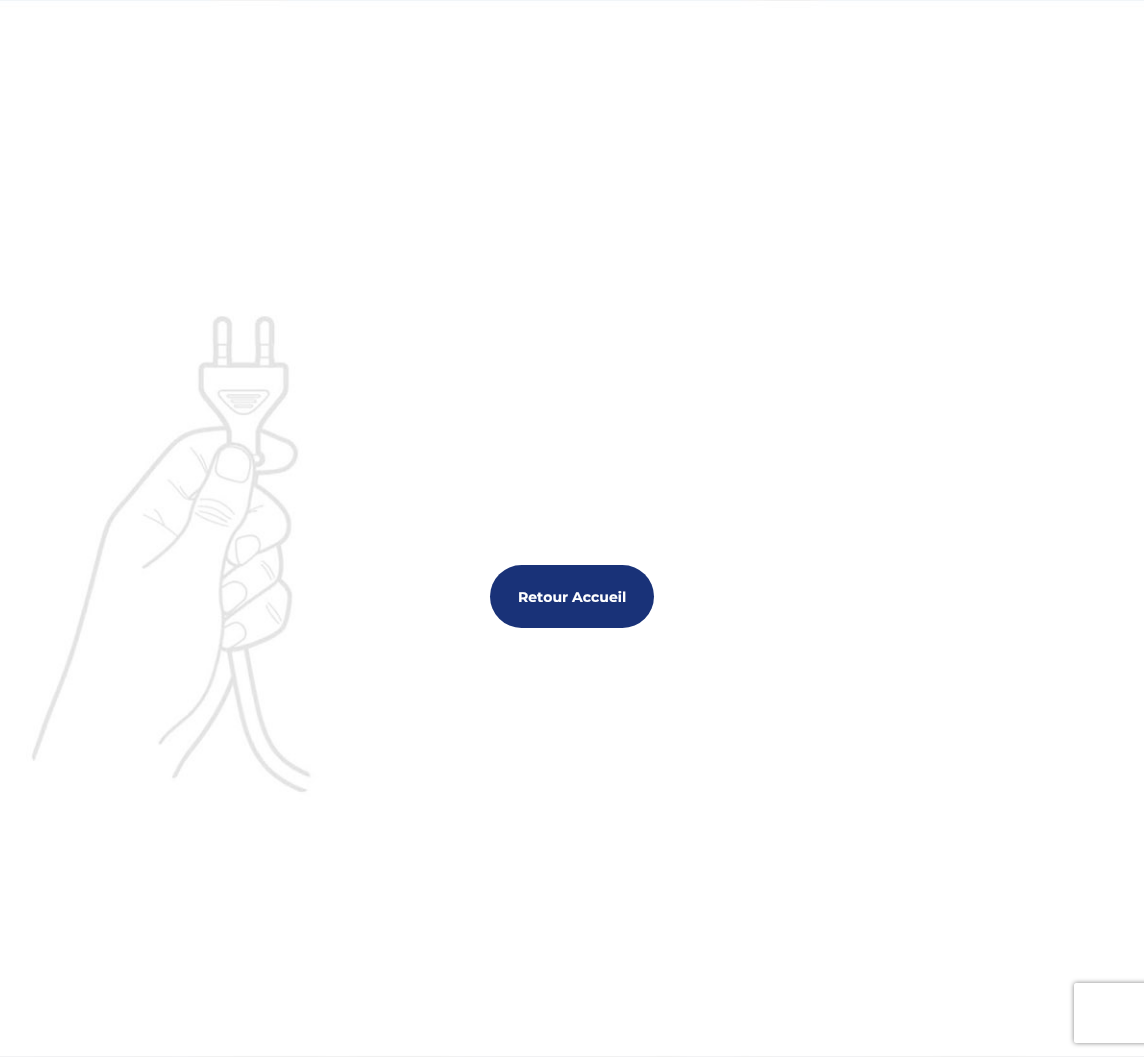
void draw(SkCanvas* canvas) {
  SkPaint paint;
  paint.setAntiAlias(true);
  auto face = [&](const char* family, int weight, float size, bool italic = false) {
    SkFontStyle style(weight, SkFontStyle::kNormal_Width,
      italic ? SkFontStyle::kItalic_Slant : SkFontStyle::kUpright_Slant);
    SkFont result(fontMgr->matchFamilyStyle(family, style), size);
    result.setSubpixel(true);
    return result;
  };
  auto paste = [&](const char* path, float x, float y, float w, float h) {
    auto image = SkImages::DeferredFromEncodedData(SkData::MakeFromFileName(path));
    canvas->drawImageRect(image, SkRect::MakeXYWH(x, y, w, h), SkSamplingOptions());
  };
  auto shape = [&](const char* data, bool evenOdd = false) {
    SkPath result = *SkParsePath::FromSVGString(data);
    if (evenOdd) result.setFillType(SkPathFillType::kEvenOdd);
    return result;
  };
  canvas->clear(0xffffffff);
  paste("img/1.png", 0, 0, 1144, 1057);
  paint.setColor(0xff193278);
  canvas->drawRoundRect(SkRect::MakeXYWH(490, 565, 164, 63), 31.5f, 31.5f, paint);
  canvas->save();
  canvas->clipPath(shape("M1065 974H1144V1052H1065ZM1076 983H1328C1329 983 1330 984 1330 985V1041C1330 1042 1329 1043 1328 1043H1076C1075 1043 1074 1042 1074 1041V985C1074 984 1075 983 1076 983Z", true), true);
  paint.setColor(0xff808080);
  paint.setMaskFilter(SkMaskFilter::MakeBlur(kNormal_SkBlurStyle, 2.5f));
  canvas->drawRoundRect(SkRect::MakeXYWH(1074, 983, 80, 60), 2, 2, paint);
  paint.setMaskFilter(nullptr);
  canvas->restore();
  auto f0 = face("Montserrat", 700, 14);
  paint.setColor(0xffffffff);
  canvas->drawString("Retour Accueil", 518, 602, f0, paint);
}
